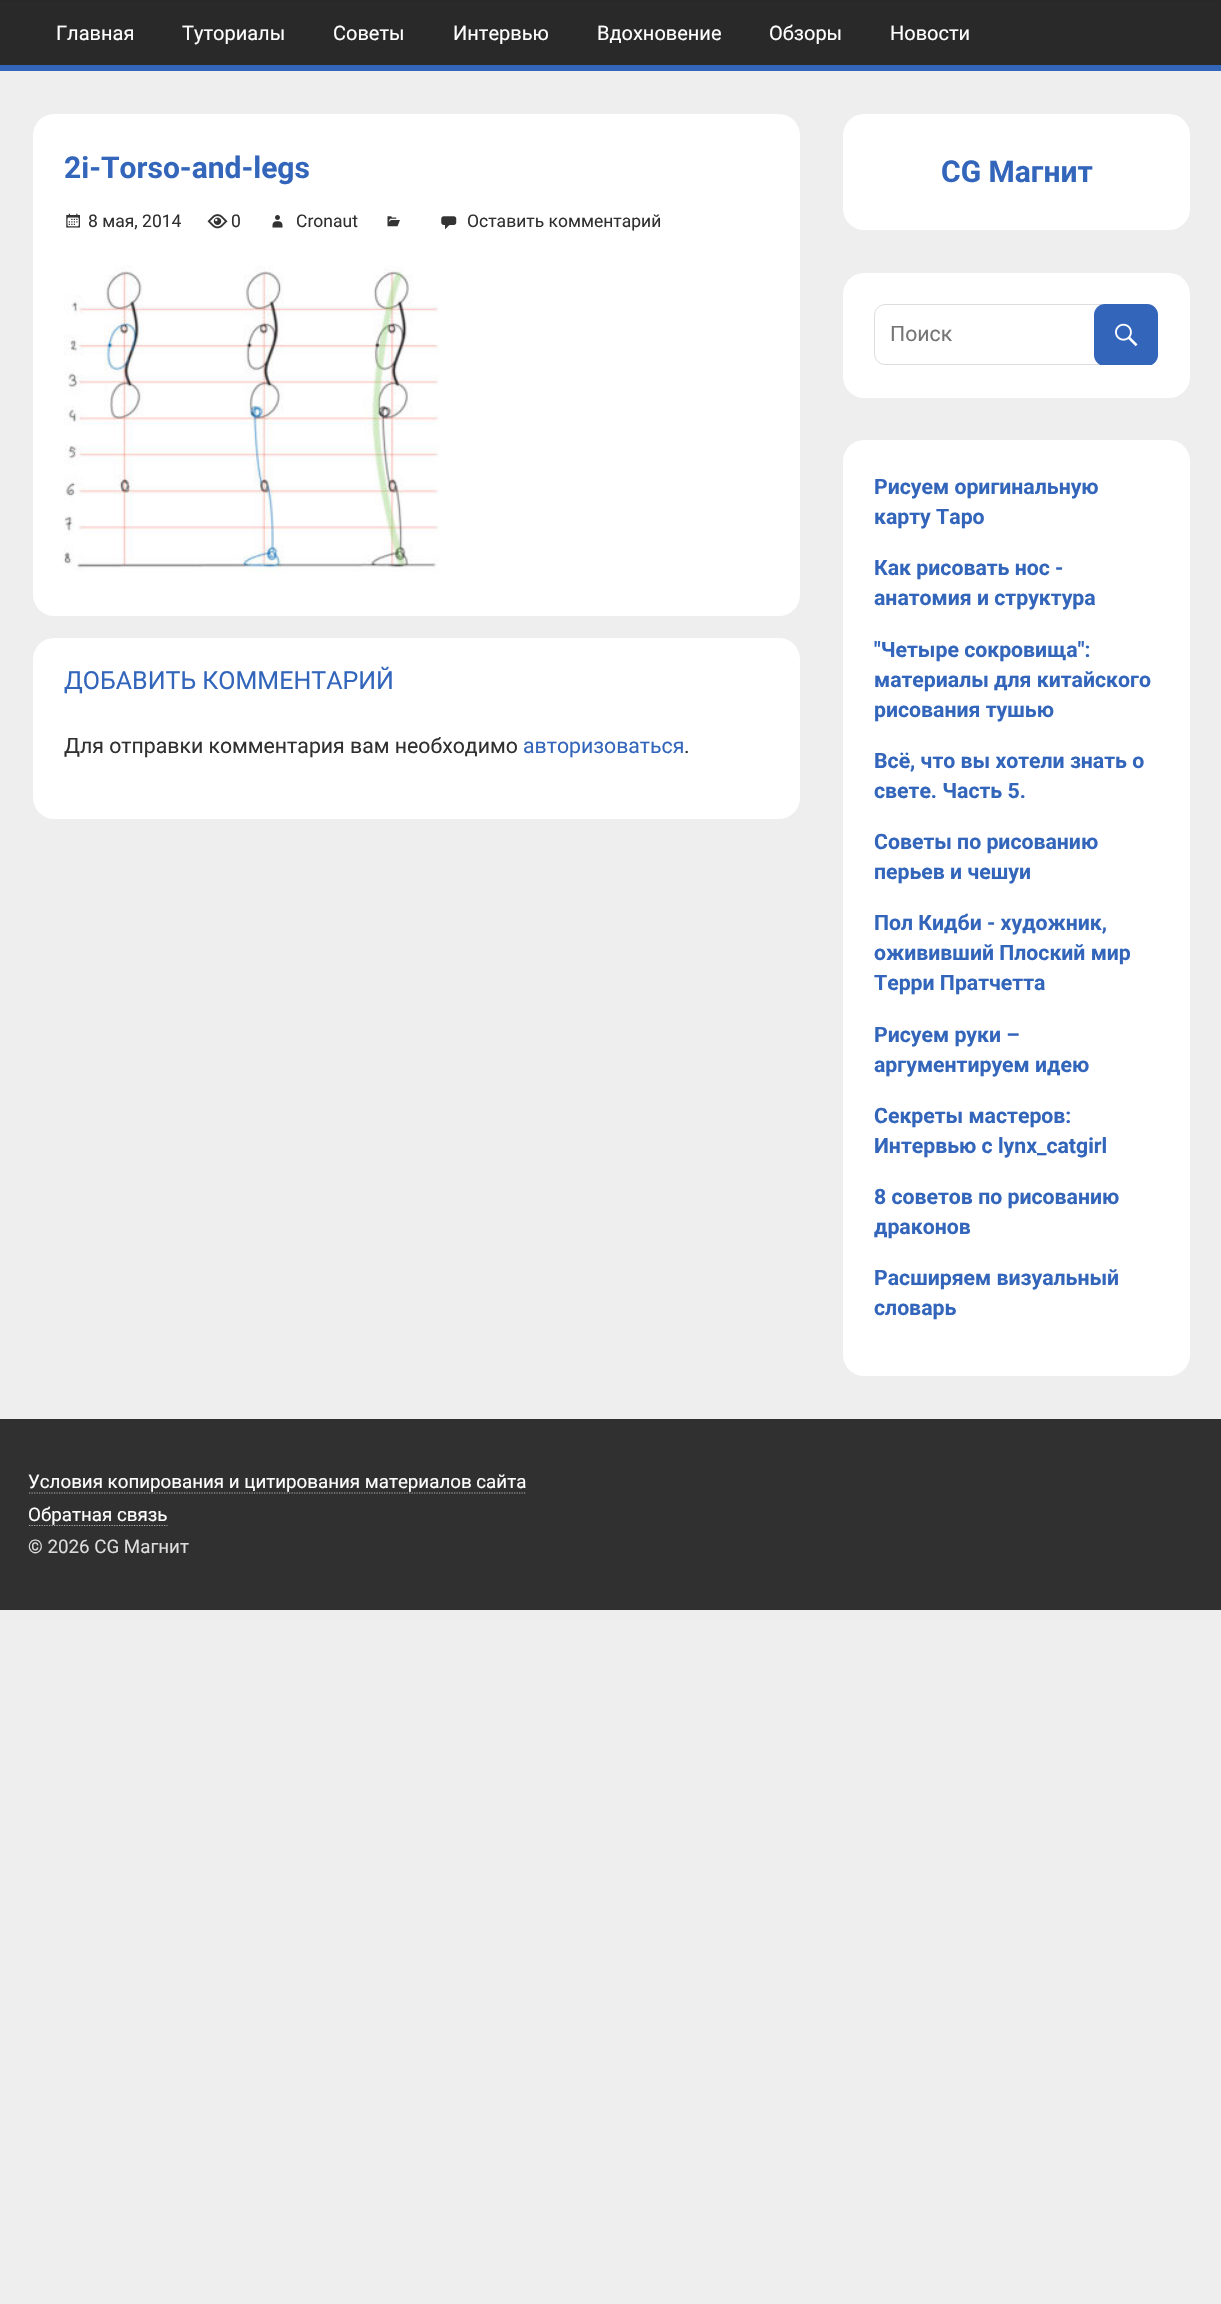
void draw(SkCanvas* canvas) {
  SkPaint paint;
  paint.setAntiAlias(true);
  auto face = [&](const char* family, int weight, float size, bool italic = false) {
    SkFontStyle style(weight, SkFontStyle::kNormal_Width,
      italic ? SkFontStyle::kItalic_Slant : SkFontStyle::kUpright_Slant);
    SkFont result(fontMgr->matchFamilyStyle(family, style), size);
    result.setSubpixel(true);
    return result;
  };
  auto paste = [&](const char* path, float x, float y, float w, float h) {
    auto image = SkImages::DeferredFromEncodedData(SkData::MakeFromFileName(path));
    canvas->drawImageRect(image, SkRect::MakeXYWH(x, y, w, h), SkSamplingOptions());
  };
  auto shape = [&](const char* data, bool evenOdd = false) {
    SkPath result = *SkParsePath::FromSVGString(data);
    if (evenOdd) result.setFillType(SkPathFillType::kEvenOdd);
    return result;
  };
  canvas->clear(0xffeeeeee);
  {
    const struct { float x, y, w, h; SkColor color; } items[] = {
      {0, 1, 1221, 64, 0xff292929},
      {0, 0, 1221, 1, 0xff272727},
      {0, 65, 1221, 6, 0xff3366bb},
    };
    for (auto [x, y, w, h, color] : items) {
      paint.setColor(color);
      canvas->drawRect(SkRect::MakeXYWH(x, y, w, h), paint);
    }
  }
  paint.setColor(0xffffffff);
  canvas->drawRoundRect(SkRect::MakeXYWH(33, 114, 767, 502), 21, 21, paint);
  paste("img/1.png", 66, 213, 14, 15);
  paste("img/2.png", 207, 214, 21, 15);
  paste("img/3.png", 272, 215, 11, 13);
  paste("img/4.png", 387, 216, 13, 11);
  paste("img/5.png", 441, 216, 16, 14);
  paste("img/6.png", 63, 265, 376, 308);
  canvas->drawRoundRect(SkRect::MakeXYWH(33, 638, 767, 181), 21, 21, paint);
  canvas->drawRoundRect(SkRect::MakeXYWH(843, 114, 347, 116), 21, 21, paint);
  canvas->drawRoundRect(SkRect::MakeXYWH(843, 273, 347, 125), 21, 21, paint);
  paint.setStroke(true);
  paint.setStrokeWidth(1);
  paint.setColor(0xffdddddd);
  canvas->drawRoundRect(SkRect::MakeXYWH(874.5f, 304.5f, 283, 60), 10.5f, 10.5f, paint);
  canvas->save();
  canvas->clipRect(SkRect::MakeXYWH(874, 304, 284, 61));
  paint.setStroke(false);
  paint.setColor(0xff3366bb);
  canvas->drawRoundRect(SkRect::MakeXYWH(1094, 304, 64, 62), 11, 11, paint);
  canvas->restore();
  paste("img/7.png", 1115, 323, 23, 24);
  paint.setColor(0xffffffff);
  canvas->drawRoundRect(SkRect::MakeXYWH(843, 440, 347, 936), 21, 21, paint);
  paint.setColor(0xff303030);
  canvas->drawRect(SkRect::MakeXYWH(0, 1419, 1221, 191), paint);
  paint.setStroke(true);
  paint.setStrokeWidth(1.2f);
  paint.setColor(0xffaaaaaa);
  paint.setPathEffect(SkDashPathEffect::Make({{1.25f, 1.25f}}, 0));
  canvas->drawPath(shape("M29 1493H526"), paint);
  paint.setPathEffect(nullptr);
  paint.setPathEffect(SkDashPathEffect::Make({{1.25f, 1.25f}}, 0));
  canvas->drawPath(shape("M29 1525.5H167.5"), paint);
  paint.setPathEffect(nullptr);
  auto f0 = face("Roboto", 400, 20);
  paint.setStroke(false);
  paint.setColor(0xffffffff);
  {
    const struct { const char* s; float x, y; } items[] = {
      {"Главная", 56, 40},
      {"Туториалы", 182, 40},
      {"Советы", 333, 40},
      {"Интервью", 453, 40},
      {"Вдохновение", 597, 40},
      {"Обзоры", 769, 40},
      {"Новости", 890, 40},
    };
    for (auto [s, x, y] : items) {
      canvas->drawString(s, x, y, f0, paint);
    }
  }
  auto f1 = face("Roboto", 700, 30);
  paint.setColor(0xff3366bb);
  canvas->drawString("2i-Torso-and-legs", 64, 178, f1, paint);
  auto f2 = face("Roboto", 400, 17.5f);
  paint.setColor(0xff303030);
  {
    const struct { const char* s; float x, y; } items[] = {
      {"8 мая, 2014", 88, 227},
      {"0", 231, 227},
      {"Cronaut", 296, 227},
      {"Оставить комментарий", 467, 227},
    };
    for (auto [s, x, y] : items) {
      canvas->drawString(s, x, y, f2, paint);
    }
  }
  auto f3 = face("Roboto", 400, 25);
  paint.setColor(0xff3366bb);
  canvas->drawString("ДОБАВИТЬ КОММЕНТАРИЙ", 64, 689, f3, paint);
  auto f4 = face("Roboto", 400, 21.25f);
  paint.setColor(0xff303030);
  canvas->drawString("Для отправки комментария вам необходимо", 64, 753, f4, paint);
  paint.setColor(0xff3366bb);
  canvas->drawString("авторизоваться", 523, 753, f4, paint);
  paint.setColor(0xff303030);
  canvas->drawString(".", 684, 753, f4, paint);
  paint.setColor(0xff3366bb);
  canvas->drawString("CG Магнит", 941, 182, f1, paint);
  paint.setColor(0xff757575);
  canvas->drawString("Поиск", 890, 341, f4, paint);
  auto f5 = face("Roboto", 700, 21.25f);
  paint.setColor(0xff3366bb);
  {
    const struct { const char* s; float x, y; } items[] = {
      {"Рисуем оригинальную", 874, 494},
      {"карту Таро", 874, 524},
      {"Как рисовать нос -", 874, 575},
      {"анатомия и структура", 874, 605},
      {"\"Четыре сокровища\":", 874, 657},
      {"материалы для китайского", 874, 687},
      {"рисования тушью", 874, 717},
      {"Всё, что вы хотели знать о", 874, 768},
      {"свете. Часть 5.", 874, 798},
      {"Советы по рисованию", 874, 849},
      {"перьев и чешуи", 874, 879},
      {"Пол Кидби - художник,", 874, 930},
      {"ожививший Плоский мир", 874, 960},
      {"Терри Пратчетта", 874, 990},
      {"Рисуем руки –", 874, 1042},
      {"аргументируем идею", 874, 1072},
      {"Секреты мастеров:", 874, 1123},
      {"Интервью с lynx_catgirl", 874, 1153},
      {"8 советов по рисованию", 874, 1204},
      {"драконов", 874, 1234},
      {"Расширяем визуальный", 874, 1285},
      {"словарь", 874, 1315},
    };
    for (auto [s, x, y] : items) {
      canvas->drawString(s, x, y, f5, paint);
    }
  }
  auto f6 = face("Roboto", 400, 18.75f);
  paint.setColor(0xffffffff);
  canvas->drawString("Условия копирования и цитирования материалов сайта", 28, 1488, f6, paint);
  canvas->drawString("Обратная связь", 28, 1521, f6, paint);
  paint.setColor(0xffdddddd);
  canvas->drawString("© 2026 CG Магнит", 28, 1553, f6, paint);
}
